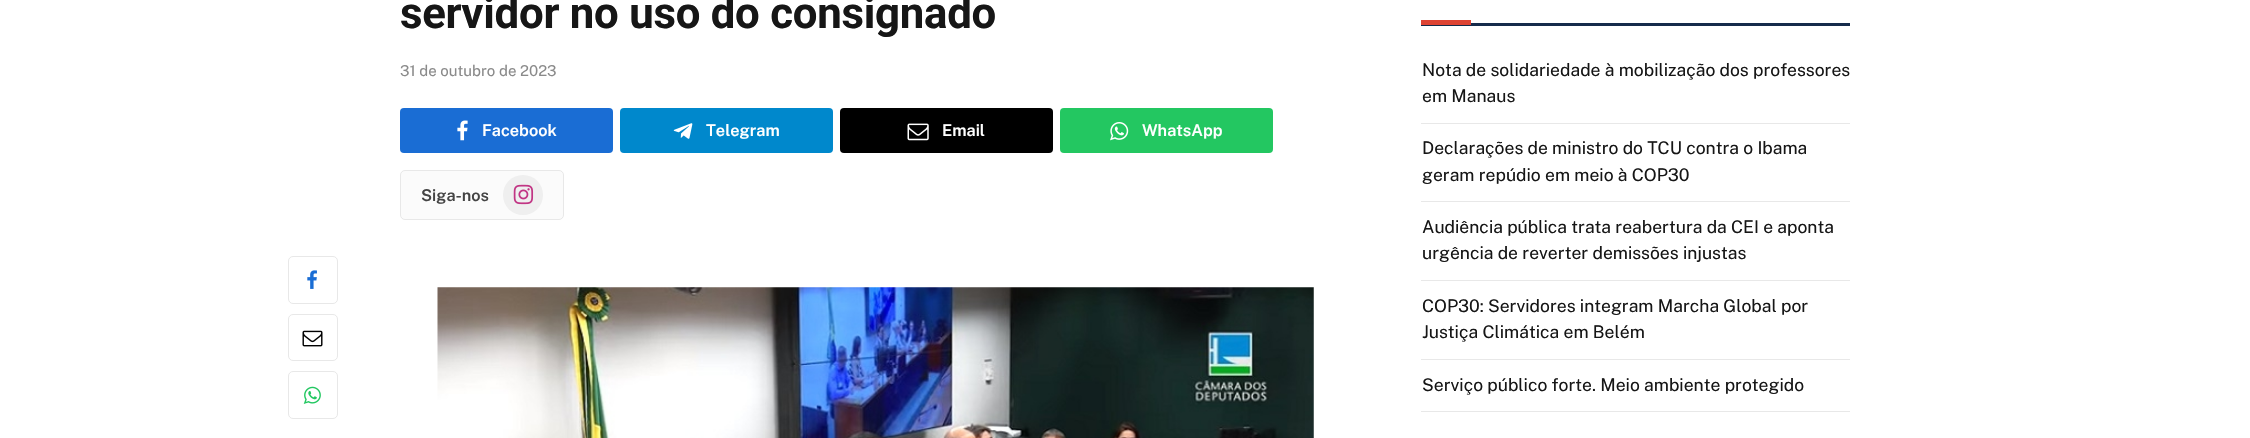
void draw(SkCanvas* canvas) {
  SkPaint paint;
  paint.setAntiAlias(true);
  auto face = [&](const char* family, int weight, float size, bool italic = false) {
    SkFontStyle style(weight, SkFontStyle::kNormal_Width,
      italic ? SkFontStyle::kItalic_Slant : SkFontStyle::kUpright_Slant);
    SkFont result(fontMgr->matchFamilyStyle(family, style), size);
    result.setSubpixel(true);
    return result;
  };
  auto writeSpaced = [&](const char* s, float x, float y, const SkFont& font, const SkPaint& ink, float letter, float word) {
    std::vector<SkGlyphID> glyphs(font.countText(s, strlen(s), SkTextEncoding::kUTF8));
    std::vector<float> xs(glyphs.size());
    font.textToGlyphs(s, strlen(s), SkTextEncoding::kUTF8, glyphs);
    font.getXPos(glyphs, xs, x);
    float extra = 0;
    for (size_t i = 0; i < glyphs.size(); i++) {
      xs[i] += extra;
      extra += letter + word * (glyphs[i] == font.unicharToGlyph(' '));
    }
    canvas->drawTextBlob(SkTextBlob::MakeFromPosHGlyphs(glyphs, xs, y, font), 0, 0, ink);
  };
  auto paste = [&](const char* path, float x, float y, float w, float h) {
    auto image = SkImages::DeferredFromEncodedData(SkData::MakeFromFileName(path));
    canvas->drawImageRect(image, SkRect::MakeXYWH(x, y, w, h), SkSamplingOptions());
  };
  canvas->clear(0xffffffff);
  paint.setColor(0xff1a6dd4);
  canvas->drawRoundRect(SkRect::MakeXYWH(400, 108, 213, 45), 4, 4, paint);
  paste("img/1.png", 457, 120, 11, 21);
  paint.setColor(0xff0088cc);
  canvas->drawRoundRect(SkRect::MakeXYWH(620, 108, 213, 45), 4, 4, paint);
  paste("img/2.png", 673, 123, 20, 16);
  paint.setColor(0xff000000);
  canvas->drawRoundRect(SkRect::MakeXYWH(840, 108, 213, 45), 4, 4, paint);
  paste("img/3.png", 907, 123, 22, 18);
  paint.setColor(0xff23c761);
  canvas->drawRoundRect(SkRect::MakeXYWH(1060, 108, 213, 45), 4, 4, paint);
  paste("img/4.png", 1110, 122, 19, 19);
  paint.setColor(0xfffbfbfb);
  canvas->drawRoundRect(SkRect::MakeXYWH(400.5f, 170.5f, 163, 49), 4.5f, 4.5f, paint);
  paint.setStroke(true);
  paint.setStrokeWidth(1);
  paint.setColor(0xffe8e8e8);
  canvas->drawRoundRect(SkRect::MakeXYWH(400.5f, 170.5f, 163, 49), 4.5f, 4.5f, paint);
  paint.setStroke(false);
  paint.setColor(0xffefefef);
  canvas->drawCircle(523, 195, 20, paint);
  paste("img/5.png", 513, 184, 21, 21);
  paint.setStroke(true);
  paint.setColor(0xffe8e8e8);
  canvas->drawRoundRect(SkRect::MakeXYWH(288.5f, 256.5f, 49, 47), 4.5f, 4.5f, paint);
  paste("img/6.png", 307, 270, 10, 19);
  canvas->drawRoundRect(SkRect::MakeXYWH(288.5f, 314.5f, 49, 46), 4.5f, 4.5f, paint);
  paste("img/7.png", 302, 330, 21, 17);
  canvas->drawRoundRect(SkRect::MakeXYWH(288.5f, 371.5f, 49, 47), 4.5f, 4.5f, paint);
  paste("img/8.png", 303, 386, 18, 18);
  paste("img/9.png", 437, 287, 877, 151);
  paint.setStroke(false);
  {
    const struct { float x, y, w, h; SkColor color; } items[] = {
      {1421, 23, 429, 3, 0xff152b4b},
      {1421, 20, 50, 5, 0xffde4333},
      {1421, 123, 429, 1, 0xffe8e8e8},
      {1421, 201, 429, 1, 0xffe8e8e8},
      {1421, 280, 429, 1, 0xffe8e8e8},
      {1421, 359, 429, 1, 0xffe8e8e8},
      {1421, 411, 429, 1, 0xffe8e8e8},
    };
    for (auto [x, y, w, h, color] : items) {
      paint.setColor(color);
      canvas->drawRect(SkRect::MakeXYWH(x, y, w, h), paint);
    }
  }
  auto f0 = face("Roboto", 700, 43.75f);
  paint.setColor(0xff161616);
  writeSpaced("servidor no uso do consignado", 400, 28, f0, paint, -0.25f, 0);
  auto f1 = face("Public Sans", 400, 15);
  paint.setColor(0xff8a8a8a);
  canvas->drawString("31 de outubro de 2023", 400, 76, f1, paint);
  auto f2 = face("Public Sans", 600, 16.25f);
  paint.setColor(0xffffffff);
  {
    const struct { const char* s; float x, y; } items[] = {
      {"Facebook", 482, 136},
      {"Telegram", 706, 136},
      {"Email", 942, 136},
      {"WhatsApp", 1142, 136},
    };
    for (auto [s, x, y] : items) {
      canvas->drawString(s, x, y, f2, paint);
    }
  }
  paint.setColor(0xff444444);
  canvas->drawString("Siga-nos", 421, 201, f2, paint);
  auto f3 = face("Public Sans", 400, 17.5f);
  paint.setColor(0xff161616);
  {
    const struct { const char* s; float x, y; } items[] = {
      {"Nota de solidariedade à mobilização dos professores", 1422, 76},
      {"em Manaus", 1422, 102},
      {"Declarações de ministro do TCU contra o Ibama", 1422, 154},
      {"geram repúdio em meio à COP30", 1422, 181},
      {"Audiência pública trata reabertura da CEI e aponta", 1422, 233},
      {"urgência de reverter demissões injustas", 1422, 259},
      {"COP30: Servidores integram Marcha Global por", 1422, 312},
      {"Justiça Climática em Belém", 1422, 338},
      {"Serviço público forte. Meio ambiente protegido", 1422, 391},
    };
    for (auto [s, x, y] : items) {
      canvas->drawString(s, x, y, f3, paint);
    }
  }
}
